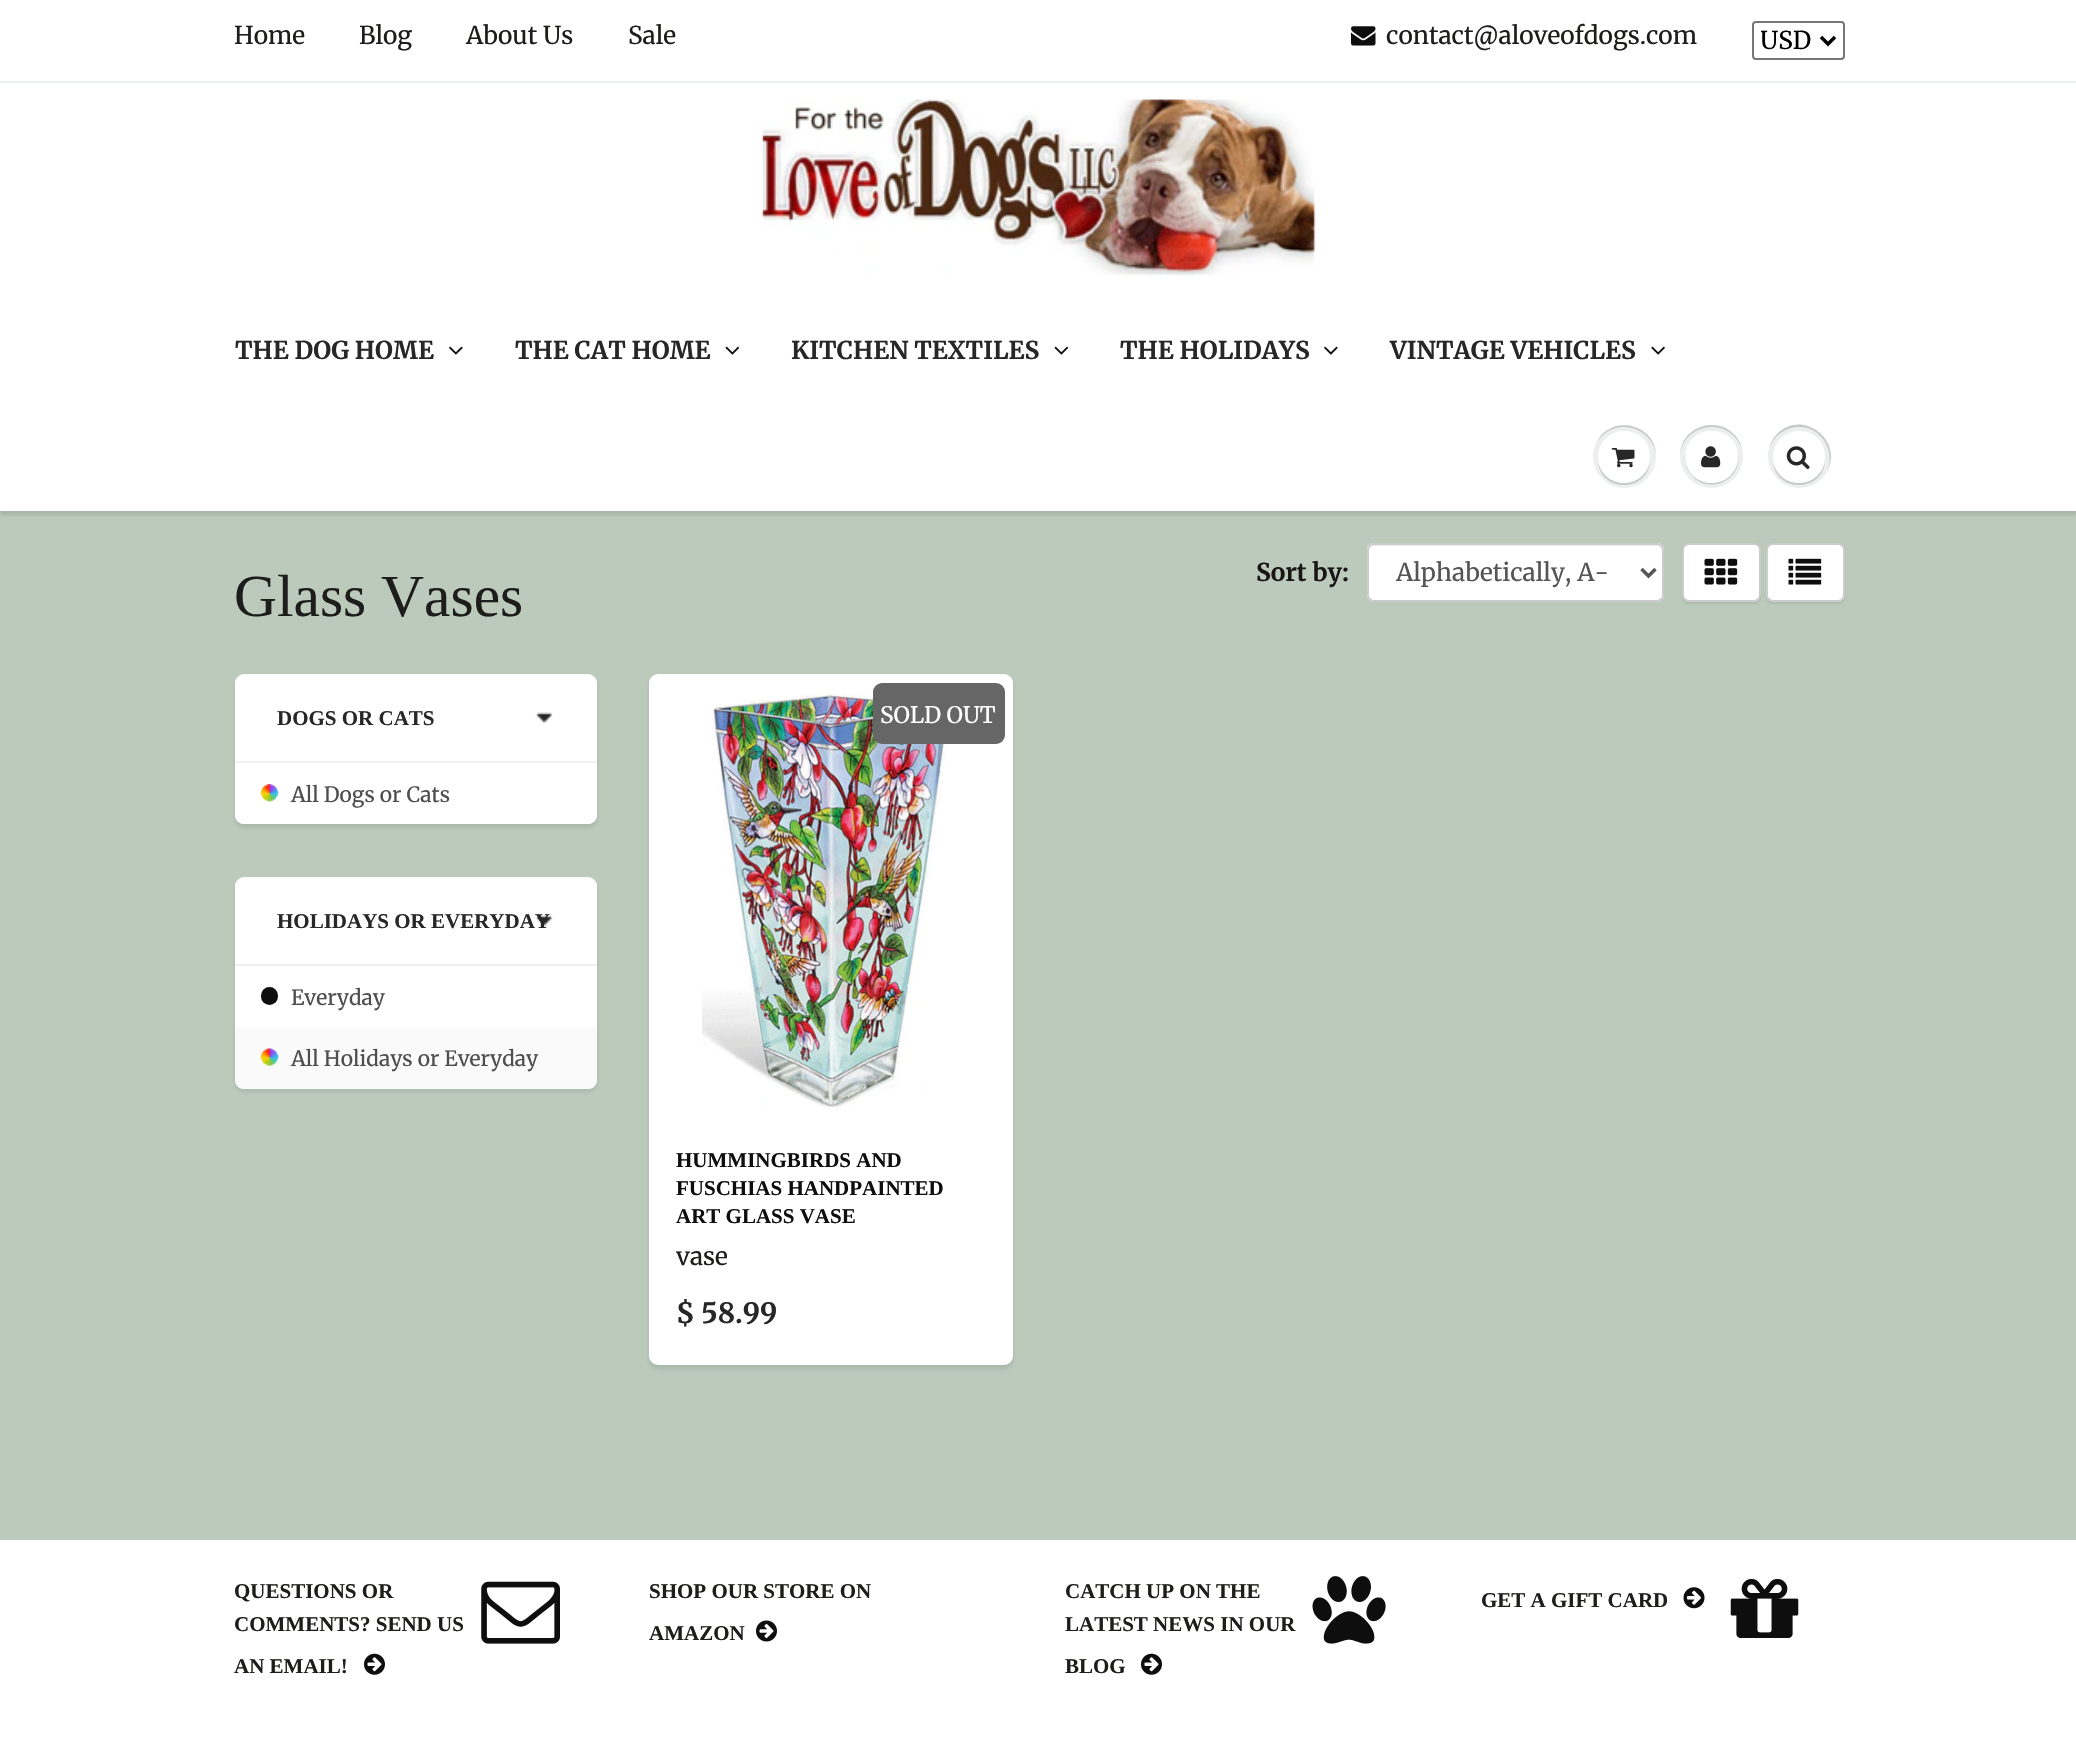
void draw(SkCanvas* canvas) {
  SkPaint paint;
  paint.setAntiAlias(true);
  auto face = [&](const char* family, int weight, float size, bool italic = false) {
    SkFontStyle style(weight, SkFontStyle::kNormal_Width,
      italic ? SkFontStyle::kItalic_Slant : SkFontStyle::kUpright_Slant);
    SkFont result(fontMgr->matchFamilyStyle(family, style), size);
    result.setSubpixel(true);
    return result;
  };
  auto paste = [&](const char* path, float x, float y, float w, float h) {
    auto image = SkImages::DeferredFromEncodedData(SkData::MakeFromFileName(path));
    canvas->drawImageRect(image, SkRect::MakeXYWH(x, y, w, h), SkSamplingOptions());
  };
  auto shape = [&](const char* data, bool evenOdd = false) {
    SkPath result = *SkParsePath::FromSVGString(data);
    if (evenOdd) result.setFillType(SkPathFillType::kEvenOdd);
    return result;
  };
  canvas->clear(0xffffffff);
  paste("img/1.png", 1351, 26, 25, 20);
  paint.setStroke(true);
  paint.setStrokeWidth(2);
  paint.setColor(0xff767676);
  canvas->drawRoundRect(SkRect::MakeXYWH(1753, 22, 91, 37), 3, 3, paint);
  paint.setStrokeWidth(3.5f);
  paint.setColor(0xff000000);
  canvas->drawPath(shape("M1821 37L1828 44L1835 37"), paint);
  paint.setStroke(false);
  paint.setColor(0xffecefef);
  canvas->drawRect(SkRect::MakeXYWH(0, 81, 2076, 2), paint);
  paste("img/2.png", 762, 99, 554, 177);
  paint.setColor(0xffedefef);
  canvas->drawCircle(1624.5f, 456.5f, 31.5f, paint);
  paint.setColor(0xffc9cbcb);
  canvas->drawPath(shape("M1624 427C1641 427 1656 441 1656 457C1657 423 1609 413 1596 444C1601 434 1612 427 1624 427Z"), paint);
  paint.setColor(0xffedefef);
  canvas->drawCircle(1711.5f, 456.5f, 31.5f, paint);
  paint.setColor(0xffc9cbcb);
  canvas->drawPath(shape("M1712 427C1729 427 1743 441 1743 457C1743 451 1741 444 1738 439C1720 413 1679 426 1680 457C1680 441 1694 427 1712 427Z"), paint);
  paint.setColor(0xffedefef);
  canvas->drawCircle(1799.5f, 456.5f, 31.5f, paint);
  paint.setColor(0xffc9cbcb);
  canvas->drawPath(shape("M1799 427C1822 427 1836 452 1827 472C1844 441 1803 408 1777 434C1771 440 1768 449 1768 457C1768 441 1782 427 1799 427Z"), paint);
  paint.setColor(0xffbbcabb);
  canvas->drawRect(SkRect::MakeXYWH(0, 511, 2076, 1029), paint);
  canvas->save();
  canvas->clipRect(SkRect::MakeXYWH(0, 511, 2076, 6));
  paint.setColor(0x1f0b191c);
  paint.setMaskFilter(SkMaskFilter::MakeBlur(kNormal_SkBlurStyle, 2));
  canvas->drawRect(SkRect::MakeXYWH(0, 296, 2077, 219), paint);
  paint.setMaskFilter(nullptr);
  canvas->restore();
  paste("img/3.png", 449, 346, 14, 9);
  paste("img/4.png", 725, 346, 15, 9);
  paste("img/4.png", 1054, 346, 15, 9);
  paste("img/3.png", 1324, 346, 14, 9);
  paste("img/5.png", 1651, 346, 14, 9);
  paint.setColor(0xffc9cbcb);
  canvas->drawPath(shape("M1598 461C1600 493 1648 493 1650 461C1645 490 1603 490 1598 461Z"), paint);
  paint.setColor(0xffffffff);
  canvas->drawCircle(1624, 457, 26, paint);
  canvas->drawPath(shape("M1624 432C1638 432 1650 444 1650 458C1650 452 1649 447 1646 442C1631 421 1598 432 1598 458C1598 444 1610 432 1624 432Z"), paint);
  paste("img/6.png", 1611, 448, 24, 20);
  paint.setColor(0xffc9cbcb);
  canvas->drawPath(shape("M1685 454C1684 461 1686 468 1690 473C1706 497 1743 481 1738 454C1741 481 1705 494 1690 471C1686 466 1685 460 1685 454Z"), paint);
  paint.setColor(0xffffffff);
  canvas->drawRoundRect(SkRect::MakeXYWH(1685, 431, 53, 52), 26, 26, paint);
  canvas->drawPath(shape("M1712 432C1726 432 1738 444 1738 458C1738 452 1737 447 1734 442C1719 421 1684 431 1685 458C1685 444 1697 432 1712 432Z"), paint);
  paste("img/7.png", 1701, 446, 20, 22);
  paint.setColor(0xffc9cbcb);
  canvas->drawPath(shape("M1773 461C1775 493 1823 493 1825 461C1820 490 1778 490 1773 461Z"), paint);
  paint.setColor(0xffffffff);
  canvas->drawCircle(1799, 457, 26, paint);
  canvas->drawPath(shape("M1799 432C1813 432 1825 444 1825 458C1825 452 1824 447 1821 442C1806 421 1773 432 1773 458C1773 444 1785 432 1799 432Z"), paint);
  paste("img/8.png", 1786, 446, 24, 23);
  paint.setColor(0x1a0b191c);
  paint.setMaskFilter(SkMaskFilter::MakeBlur(kNormal_SkBlurStyle, 2));
  canvas->drawRoundRect(SkRect::MakeXYWH(235, 677, 362, 151), 9, 9, paint);
  paint.setMaskFilter(nullptr);
  paint.setColor(0xffffffff);
  canvas->drawRoundRect(SkRect::MakeXYWH(235, 674, 362, 150), 9, 9, paint);
  paint.setColor(0xffefefef);
  canvas->drawRect(SkRect::MakeXYWH(235, 761, 362, 2), paint);
  paste("img/9.png", 535, 712, 18, 11);
  paint.setColor(0xffffffff);
  canvas->drawPath(shape("M235 763H597V815C597 820 593 824 588 824H244C239 824 235 820 235 815Z"), paint);
  paste("img/10.png", 260, 784, 19, 18);
  paint.setColor(0x1a0b191c);
  paint.setMaskFilter(SkMaskFilter::MakeBlur(kNormal_SkBlurStyle, 2));
  canvas->drawRoundRect(SkRect::MakeXYWH(235, 880, 362, 212), 9, 9, paint);
  paint.setMaskFilter(nullptr);
  paint.setColor(0xffffffff);
  canvas->drawRoundRect(SkRect::MakeXYWH(235, 877, 362, 212), 9, 9, paint);
  paint.setColor(0xffefefef);
  canvas->drawRect(SkRect::MakeXYWH(235, 964, 362, 2), paint);
  paste("img/11.png", 535, 915, 18, 11);
  paint.setColor(0xff0e0e0e);
  canvas->drawRoundRect(SkRect::MakeXYWH(261, 987, 17, 18), 8.5f, 8.5f, paint);
  paint.setColor(0xfffafafa);
  canvas->drawPath(shape("M235 1027H597V1080C597 1085 593 1089 588 1089H244C239 1089 235 1085 235 1080Z"), paint);
  paste("img/12.png", 260, 1048, 19, 18);
  paint.setColor(0xffffffff);
  canvas->drawRoundRect(SkRect::MakeXYWH(1367, 543, 297, 59), 7, 7, paint);
  paint.setColor(0xffececec);
  canvas->drawPath(shape("M1374 546H1657C1660 546 1662 548 1662 551V598C1663 597 1663 596 1663 595V549C1663 546 1661 544 1658 544H1374C1372 544 1369 546 1369 548C1370 547 1372 546 1374 546Z"), paint);
  paint.setStroke(true);
  paint.setStrokeWidth(2);
  paint.setColor(0xffcccccc);
  canvas->drawRoundRect(SkRect::MakeXYWH(1368, 544, 295, 57), 6, 6, paint);
  paint.setStrokeWidth(3.5f);
  paint.setColor(0xff555555);
  canvas->drawPath(shape("M1641.5 569L1648.5 576L1655.5 569"), paint);
  paint.setStroke(false);
  paint.setColor(0x12000000);
  paint.setMaskFilter(SkMaskFilter::MakeBlur(kNormal_SkBlurStyle, 1));
  canvas->drawRoundRect(SkRect::MakeXYWH(1682, 544, 79, 60), 7, 7, paint);
  paint.setMaskFilter(nullptr);
  paint.setColor(0xffffffff);
  canvas->drawRoundRect(SkRect::MakeXYWH(1683, 544, 77, 57), 6, 6, paint);
  paint.setStroke(true);
  paint.setStrokeWidth(2);
  paint.setColor(0xffcccccc);
  canvas->drawRoundRect(SkRect::MakeXYWH(1683, 544, 77, 57), 6, 6, paint);
  paste("img/13.png", 1704, 558, 34, 27);
  paint.setStroke(false);
  paint.setColor(0x12000000);
  paint.setMaskFilter(SkMaskFilter::MakeBlur(kNormal_SkBlurStyle, 1));
  canvas->drawRoundRect(SkRect::MakeXYWH(1766, 544, 79, 60), 7, 7, paint);
  paint.setMaskFilter(nullptr);
  paint.setColor(0xffffffff);
  canvas->drawRoundRect(SkRect::MakeXYWH(1767, 544, 77, 57), 6, 6, paint);
  paint.setStroke(true);
  paint.setColor(0xffcccccc);
  canvas->drawRoundRect(SkRect::MakeXYWH(1767, 544, 77, 57), 6, 6, paint);
  paste("img/14.png", 1788, 558, 34, 27);
  paint.setStroke(false);
  paint.setColor(0x1a0b191c);
  paint.setMaskFilter(SkMaskFilter::MakeBlur(kNormal_SkBlurStyle, 2));
  canvas->drawRoundRect(SkRect::MakeXYWH(649, 677, 364, 692), 9, 9, paint);
  paint.setMaskFilter(nullptr);
  paint.setColor(0xffffffff);
  canvas->drawRoundRect(SkRect::MakeXYWH(653.5f, 678.5f, 355, 682), 4.5f, 4.5f, paint);
  paint.setStroke(true);
  paint.setStrokeWidth(9);
  canvas->drawRoundRect(SkRect::MakeXYWH(653.5f, 678.5f, 355, 682), 4.5f, 4.5f, paint);
  paste("img/15.png", 702, 693, 250, 416);
  paint.setStroke(false);
  paint.setColor(0xff666666);
  canvas->drawRoundRect(SkRect::MakeXYWH(873, 683, 132, 61), 9, 9, paint);
  paste("img/16.png", 364, 1653, 21, 22);
  paste("img/17.png", 481, 1581, 79, 63);
  paste("img/18.png", 756, 1620, 21, 22);
  paste("img/16.png", 1141, 1653, 21, 22);
  paste("img/19.png", 1312, 1576, 74, 68);
  paste("img/20.png", 1683, 1587, 22, 22);
  paste("img/21.png", 1730, 1578, 69, 60);
  auto f0 = face("Merriweather", 400, 24.5f);
  paint.setColor(0xff1d1d1b);
  {
    const struct { const char* s; float x, y; } items[] = {
      {"Home", 234, 44},
      {"Blog", 359, 44},
      {"About Us", 466, 44},
      {"Sale", 628, 44},
      {"contact@aloveofdogs.com", 1386, 44},
    };
    for (auto [s, x, y] : items) {
      canvas->drawString(s, x, y, f0, paint);
    }
  }
  canvas->save();
  canvas->clipRect(SkRect::MakeXYWH(1761, 23, 54, 35));
  paint.setColor(0xff000000);
  canvas->drawString("USD", 1760, 49, f0, paint);
  canvas->restore();
  auto f1 = face("Merriweather", 700, 24.5f);
  paint.setColor(0xff282727);
  {
    const struct { const char* s; float x, y; } items[] = {
      {"THE DOG HOME", 235, 359},
      {"THE CAT HOME", 515, 359},
      {"KITCHEN TEXTILES", 791, 359},
      {"THE HOLIDAYS", 1120, 359},
      {"VINTAGE VEHICLES", 1390, 359},
    };
    for (auto [s, x, y] : items) {
      canvas->drawString(s, x, y, f1, paint);
    }
  }
  auto f2 = face("Liberation Serif", 700, 21);
  canvas->drawString("DOGS OR CATS", 277, 725, f2, paint);
  auto f3 = face("Merriweather", 400, 21);
  paint.setColor(0xff4e4e4e);
  canvas->drawString("All Dogs or Cats", 291, 802, f3, paint);
  paint.setColor(0xff282727);
  canvas->drawString("HOLIDAYS OR EVERYDAY", 277, 928, f2, paint);
  paint.setColor(0xff4e4e4e);
  canvas->drawString("Everyday", 291, 1005, f3, paint);
  canvas->drawString("All Holidays or Everyday", 291, 1066, f3, paint);
  paint.setColor(0xff1a1616);
  canvas->drawString("Sort by:", 1256, 581, f1, paint);
  paint.setColor(0xff555555);
  canvas->drawString("Alphabetically, A-", 1396, 581, f0, paint);
  auto f4 = face("Merriweather", 400, 22.75f);
  paint.setColor(0xffffffff);
  canvas->drawString("SOLD OUT", 880, 723, f4, paint);
  paint.setColor(0xff0e0e0e);
  {
    const struct { const char* s; float x, y; } items[] = {
      {"HUMMINGBIRDS AND", 676, 1167},
      {"FUSCHIAS HANDPAINTED", 676, 1195},
      {"ART GLASS VASE", 676, 1223},
    };
    for (auto [s, x, y] : items) {
      canvas->drawString(s, x, y, f2, paint);
    }
  }
  paint.setColor(0xff1d1d1b);
  canvas->drawString("vase", 676, 1265, f0, paint);
  auto f5 = face("Merriweather", 700, 28);
  paint.setColor(0xff282727);
  canvas->drawString("$ 58.99", 676, 1323, f5, paint);
  auto f6 = face("Liberation Serif", 400, 59.5f);
  paint.setColor(0xff1d1d1b);
  canvas->drawString("Glass Vases", 234, 616, f6, paint);
  {
    const struct { const char* s; float x, y; } items[] = {
      {"QUESTIONS OR", 234, 1598},
      {"COMMENTS? SEND US", 234, 1631},
      {"AN EMAIL!", 234, 1673},
      {"SHOP OUR STORE ON", 649, 1598},
      {"AMAZON", 649, 1640},
      {"CATCH UP ON THE", 1065, 1598},
      {"LATEST NEWS IN OUR", 1065, 1631},
      {"BLOG", 1065, 1673},
      {"GET A GIFT CARD", 1481, 1607},
    };
    for (auto [s, x, y] : items) {
      canvas->drawString(s, x, y, f2, paint);
    }
  }
}
